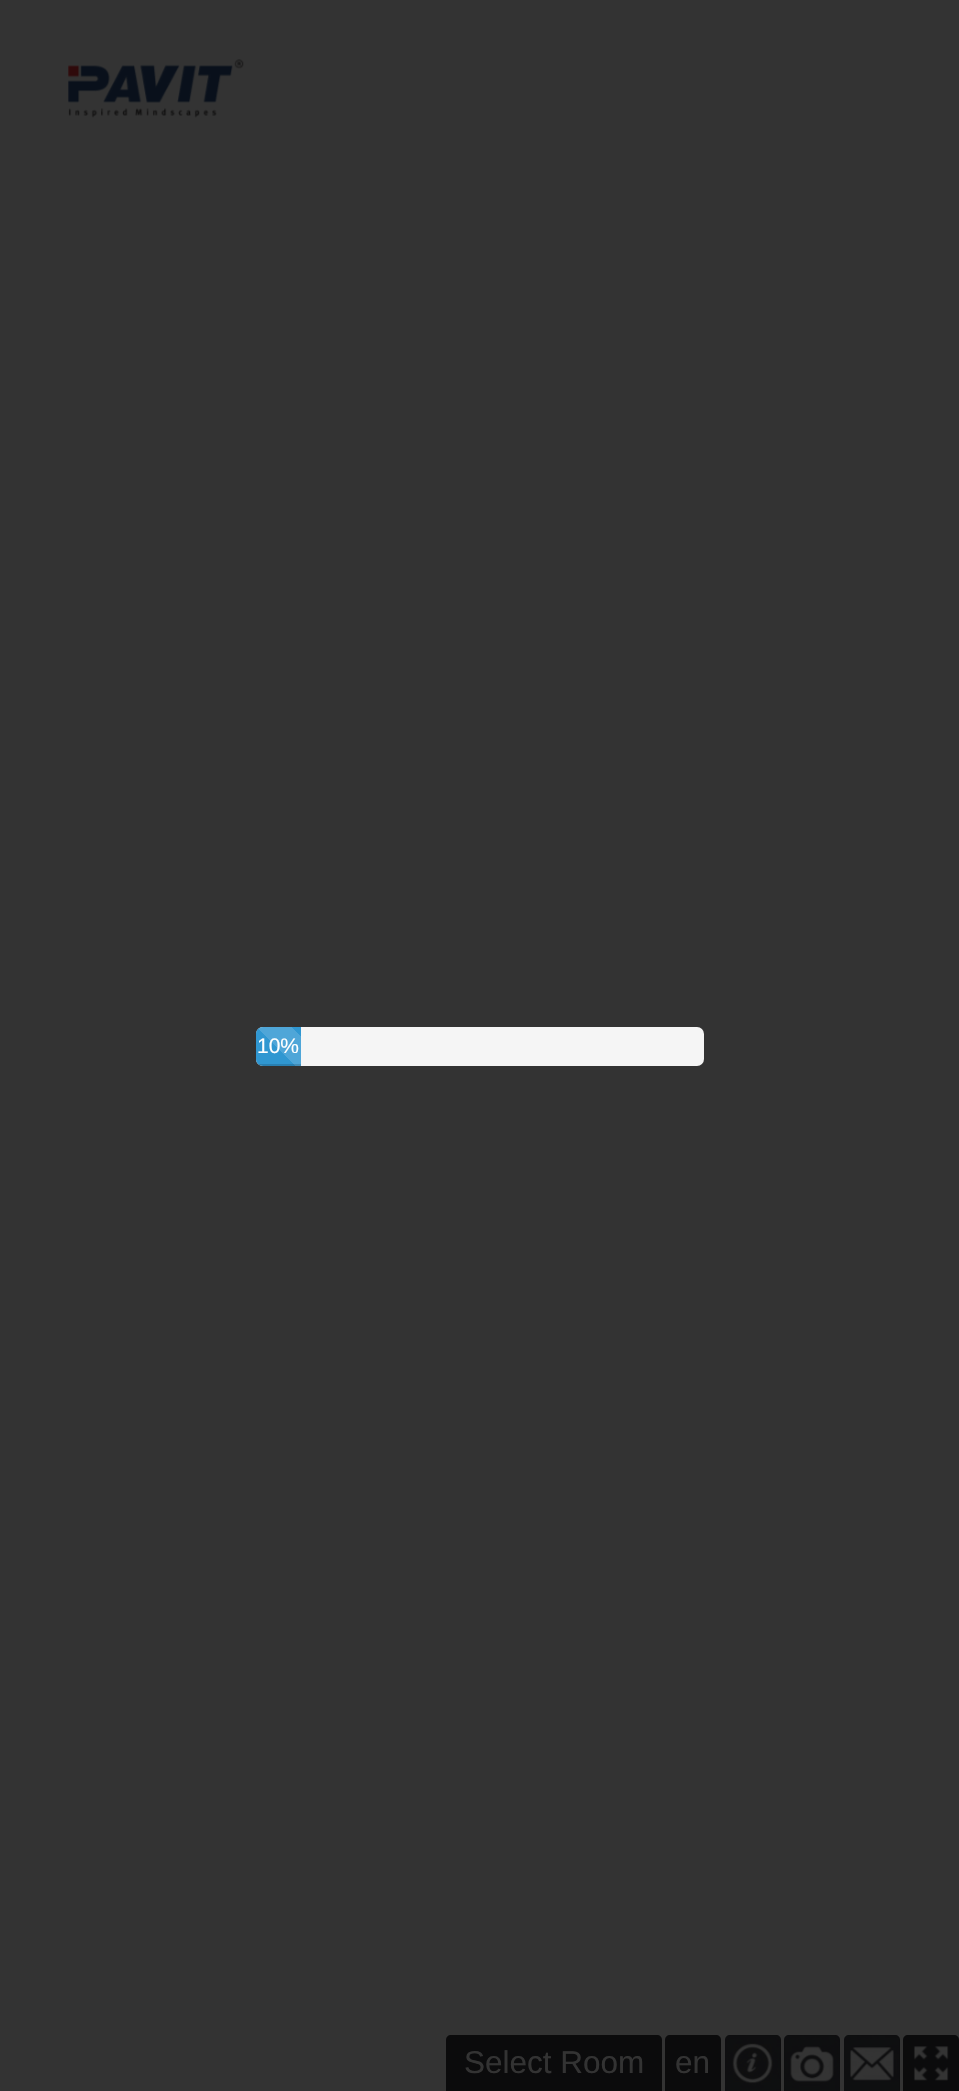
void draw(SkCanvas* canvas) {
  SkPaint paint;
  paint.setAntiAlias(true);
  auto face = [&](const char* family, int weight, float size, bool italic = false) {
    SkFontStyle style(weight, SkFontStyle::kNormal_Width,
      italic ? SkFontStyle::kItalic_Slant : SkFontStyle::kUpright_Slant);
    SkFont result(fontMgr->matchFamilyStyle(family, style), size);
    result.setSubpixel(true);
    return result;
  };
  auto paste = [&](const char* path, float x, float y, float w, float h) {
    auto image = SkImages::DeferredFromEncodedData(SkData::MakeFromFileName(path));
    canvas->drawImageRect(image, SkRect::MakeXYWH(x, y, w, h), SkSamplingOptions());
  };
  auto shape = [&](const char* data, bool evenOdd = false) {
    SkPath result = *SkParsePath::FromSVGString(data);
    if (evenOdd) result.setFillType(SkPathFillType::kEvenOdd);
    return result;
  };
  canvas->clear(0xff333333);
  paste("img/1.png", 68, 59, 176, 59);
  paint.setColor(0xfff5f5f5);
  canvas->drawRoundRect(SkRect::MakeXYWH(256, 1027, 448, 39), 7, 7, paint);
  paint.setColor(0xff3097d1);
  canvas->drawPath(shape("M263 1027H301V1066H263C259 1066 256 1063 256 1059V1034C256 1030 259 1027 263 1027Z"), paint);
  {
    const SkColor colors[] = {0x26ffffff, 0x00ffffff, 0x00ffffff, 0x26ffffff, 0x26ffffff, 0x00ffffff, 0x00000000};
    const float stops[] = {0.25f, 0.25f, 0.5f, 0.5f, 0.75f, 0.75f, 1};
    const SkPoint ends[] = {{256, 1097}, {326, 1027}};
    paint.setShader(SkGradientShader::MakeLinear(ends, colors, stops, 7, SkTileMode::kClamp));
    paint.setAlpha(255);
  }
  canvas->drawPath(shape("M263 1027H301V1066H263C259 1066 256 1063 256 1059V1034C256 1030 259 1027 263 1027Z"), paint);
  canvas->save();
  canvas->clipPath(shape("M263 1027H697C701 1027 704 1030 704 1034V1059C704 1063 701 1066 697 1066H263C259 1066 256 1063 256 1059V1034C256 1030 259 1027 263 1027Z"), true);
  paint.setShader(nullptr);
  paint.setColor(0x26000000);
  canvas->drawRect(SkRect::MakeXYWH(256, 1064, 45, 2), paint);
  canvas->restore();
  paint.setColor(0xff0b0b0c);
  canvas->drawPath(shape("M451 2035H657C660 2035 662 2037 662 2040V2091H446V2040C446 2037 448 2035 451 2035Z"), paint);
  canvas->drawPath(shape("M670 2035H716C719 2035 721 2037 721 2040V2091H665V2040C665 2037 667 2035 670 2035Z"), paint);
  canvas->drawPath(shape("M730 2035H776C779 2035 781 2037 781 2040V2091H725V2040C725 2037 727 2035 730 2035Z"), paint);
  paste("img/2.png", 725, 2035, 56, 56);
  canvas->drawPath(shape("M789 2035H835C838 2035 840 2037 840 2040V2091H784V2040C784 2037 786 2035 789 2035Z"), paint);
  paste("img/3.png", 784, 2035, 56, 56);
  canvas->drawPath(shape("M849 2035H895C898 2035 900 2037 900 2040V2091H844V2040C844 2037 846 2035 849 2035Z"), paint);
  paste("img/4.png", 844, 2035, 56, 56);
  canvas->drawPath(shape("M908 2035H954C957 2035 959 2037 959 2040V2091H903V2040C903 2037 905 2035 908 2035Z"), paint);
  paste("img/5.png", 913, 2046, 36, 35);
  auto f0 = face("Liberation Sans", 400, 21);
  paint.setColor(0xffffffff);
  canvas->drawString("10%", 257, 1053, f0, paint);
  auto f1 = face("Liberation Sans", 400, 31.5f);
  paint.setColor(0xff333333);
  canvas->drawString("Select Room", 464, 2073, f1, paint);
  canvas->drawString("en", 675, 2073, f1, paint);
}
